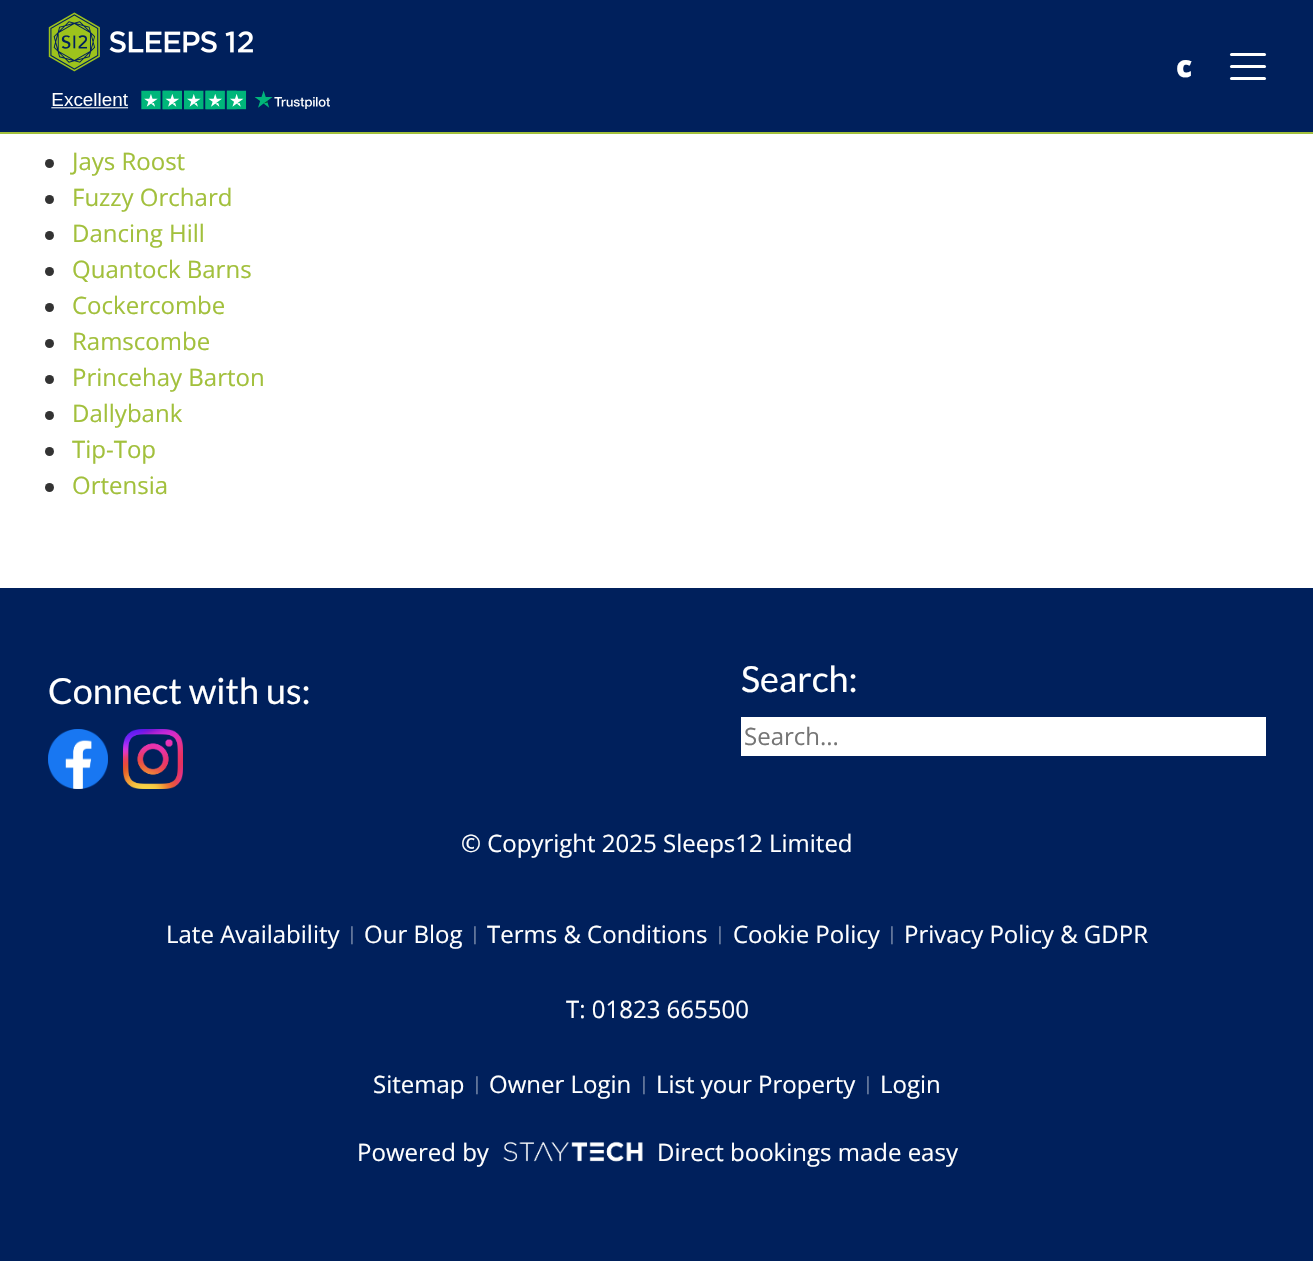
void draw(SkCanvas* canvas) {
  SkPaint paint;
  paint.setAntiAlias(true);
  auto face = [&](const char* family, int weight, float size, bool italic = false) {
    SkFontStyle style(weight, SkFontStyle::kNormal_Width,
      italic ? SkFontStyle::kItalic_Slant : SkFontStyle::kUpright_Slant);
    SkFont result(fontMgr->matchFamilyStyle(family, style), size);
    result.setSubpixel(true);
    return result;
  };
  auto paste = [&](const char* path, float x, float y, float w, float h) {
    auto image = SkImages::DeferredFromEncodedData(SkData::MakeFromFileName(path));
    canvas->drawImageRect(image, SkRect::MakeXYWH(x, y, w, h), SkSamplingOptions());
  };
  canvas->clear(0xffffffff);
  paint.setColor(0xff00205c);
  canvas->drawRect(SkRect::MakeXYWH(0, 0, 1313, 132), paint);
  paint.setColor(0xffa2c03c);
  canvas->drawRect(SkRect::MakeXYWH(0, 132, 1313, 2), paint);
  paste("img/1.png", 48, 12, 205, 60);
  paste("img/2.png", 51, 90, 279, 20);
  paint.setColor(0xffffffff);
  canvas->drawRoundRect(SkRect::MakeXYWH(1230, 65, 36, 3), 1.5f, 1.5f, paint);
  canvas->drawRoundRect(SkRect::MakeXYWH(1230, 53, 36, 3), 1.5f, 1.5f, paint);
  canvas->drawRoundRect(SkRect::MakeXYWH(1230, 77, 36, 3), 1.5f, 1.5f, paint);
  paint.setColor(0xff333333);
  canvas->drawCircle(49.5f, 163.5f, 4.5f, paint);
  canvas->drawCircle(49.5f, 199.5f, 4.5f, paint);
  canvas->drawCircle(49.5f, 235.5f, 4.5f, paint);
  canvas->drawCircle(49.5f, 271.5f, 4.5f, paint);
  canvas->drawCircle(49.5f, 307.5f, 4.5f, paint);
  canvas->drawCircle(49.5f, 343.5f, 4.5f, paint);
  canvas->drawCircle(49.5f, 379.5f, 4.5f, paint);
  canvas->drawCircle(49.5f, 415.5f, 4.5f, paint);
  canvas->drawCircle(49.5f, 451.5f, 4.5f, paint);
  canvas->drawCircle(49.5f, 487.5f, 4.5f, paint);
  paint.setColor(0xff00205c);
  canvas->drawRect(SkRect::MakeXYWH(0, 588, 1313, 673), paint);
  paste("img/3.png", 48, 729, 60, 60);
  paste("img/4.png", 123, 729, 60, 60);
  paint.setColor(0xffffffff);
  canvas->drawRect(SkRect::MakeXYWH(741, 717, 525, 39), paint);
  paste("img/5.png", 503, 1141, 140, 21);
  auto f0 = face("Noto Sans", 900, 30);
  canvas->drawString("c", 1176, 77, f0, paint);
  auto f1 = face("Open Sans", 400, 24);
  paint.setColor(0xffa2c03c);
  {
    const struct { const char* s; float x, y; } items[] = {
      {"Jays Roost", 72, 170},
      {"Fuzzy Orchard", 72, 206},
      {"Dancing Hill", 72, 242},
      {"Quantock Barns", 72, 278},
      {"Cockercombe", 72, 314},
      {"Ramscombe", 72, 350},
      {"Princehay Barton", 72, 386},
      {"Dallybank", 72, 422},
      {"Tip-Top", 72, 458},
      {"Ortensia", 72, 494},
    };
    for (auto [s, x, y] : items) {
      canvas->drawString(s, x, y, f1, paint);
    }
  }
  auto f2 = face("Lato", 400, 36);
  paint.setColor(0xffffffff);
  canvas->drawString("Connect with us:", 48, 704, f2, paint);
  canvas->drawString("Search:", 741, 692, f2, paint);
  paint.setColor(0xff757575);
  canvas->drawString("Search...", 744, 745, f1, paint);
  paint.setColor(0xffffffff);
  canvas->drawString("© Copyright 2025 Sleeps12 Limited", 461, 852, f1, paint);
  canvas->drawString("Late Availability", 166, 943, f1, paint);
  auto f3 = face("Open Sans", 400, 18);
  paint.setColor(0xff8090ae);
  canvas->drawString("|", 347, 940, f3, paint);
  paint.setColor(0xffffffff);
  canvas->drawString("Our Blog", 364, 943, f1, paint);
  paint.setColor(0xff8090ae);
  canvas->drawString("|", 470, 940, f3, paint);
  paint.setColor(0xffffffff);
  canvas->drawString("Terms & Conditions", 487, 943, f1, paint);
  paint.setColor(0xff8090ae);
  canvas->drawString("|", 715, 940, f3, paint);
  paint.setColor(0xffffffff);
  canvas->drawString("Cookie Policy", 733, 943, f1, paint);
  paint.setColor(0xff8090ae);
  canvas->drawString("|", 887, 940, f3, paint);
  paint.setColor(0xffffffff);
  {
    const struct { const char* s; float x, y; } items[] = {
      {"Privacy Policy & GDPR", 904, 943},
      {"T: 01823 665500", 566, 1018},
      {"Sitemap", 373, 1093},
    };
    for (auto [s, x, y] : items) {
      canvas->drawString(s, x, y, f1, paint);
    }
  }
  paint.setColor(0xff8090ae);
  canvas->drawString("|", 472, 1090, f3, paint);
  paint.setColor(0xffffffff);
  canvas->drawString("Owner Login", 489, 1093, f1, paint);
  paint.setColor(0xff8090ae);
  canvas->drawString("|", 639, 1090, f3, paint);
  paint.setColor(0xffffffff);
  canvas->drawString("List your Property", 656, 1093, f1, paint);
  paint.setColor(0xff8090ae);
  canvas->drawString("|", 863, 1090, f3, paint);
  paint.setColor(0xffffffff);
  {
    const struct { const char* s; float x, y; } items[] = {
      {"Login", 880, 1093},
      {"Powered by", 357, 1161},
      {"Direct bookings made easy", 657, 1161},
    };
    for (auto [s, x, y] : items) {
      canvas->drawString(s, x, y, f1, paint);
    }
  }
}
